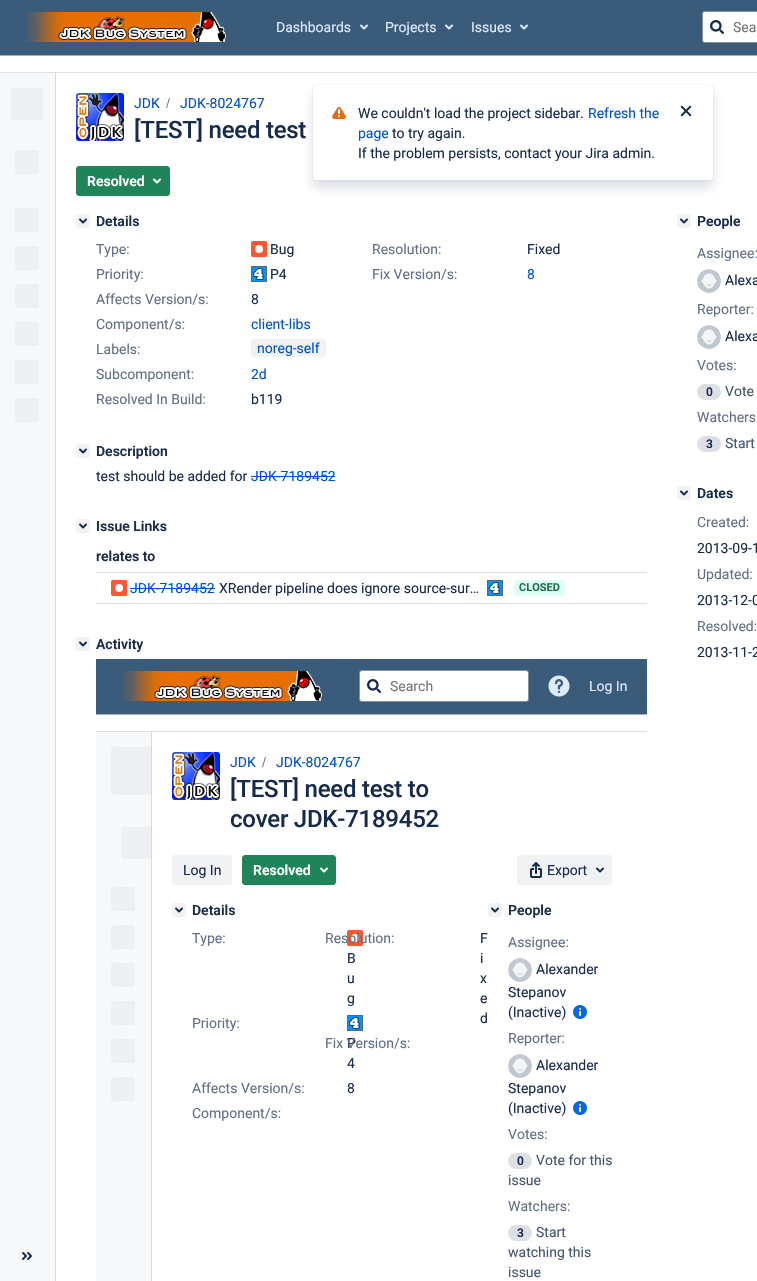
void draw(SkCanvas* canvas) {
  SkPaint paint;
  paint.setAntiAlias(true);
  auto face = [&](const char* family, int weight, float size, bool italic = false) {
    SkFontStyle style(weight, SkFontStyle::kNormal_Width,
      italic ? SkFontStyle::kItalic_Slant : SkFontStyle::kUpright_Slant);
    SkFont result(fontMgr->matchFamilyStyle(family, style), size);
    result.setSubpixel(true);
    return result;
  };
  auto writeSpaced = [&](const char* s, float x, float y, const SkFont& font, const SkPaint& ink, float letter, float word) {
    std::vector<SkGlyphID> glyphs(font.countText(s, strlen(s), SkTextEncoding::kUTF8));
    std::vector<float> xs(glyphs.size());
    font.textToGlyphs(s, strlen(s), SkTextEncoding::kUTF8, glyphs);
    font.getXPos(glyphs, xs, x);
    float extra = 0;
    for (size_t i = 0; i < glyphs.size(); i++) {
      xs[i] += extra;
      extra += letter + word * (glyphs[i] == font.unicharToGlyph(' '));
    }
    canvas->drawTextBlob(SkTextBlob::MakeFromPosHGlyphs(glyphs, xs, y, font), 0, 0, ink);
  };
  auto paste = [&](const char* path, float x, float y, float w, float h) {
    auto image = SkImages::DeferredFromEncodedData(SkData::MakeFromFileName(path));
    canvas->drawImageRect(image, SkRect::MakeXYWH(x, y, w, h), SkSamplingOptions());
  };
  auto shape = [&](const char* data, bool evenOdd = false) {
    SkPath result = *SkParsePath::FromSVGString(data);
    if (evenOdd) result.setFillType(SkPathFillType::kEvenOdd);
    return result;
  };
  canvas->clear(0xffffffff);
  paint.setColor(0xff3b5b7b);
  canvas->drawRect(SkRect::MakeXYWH(0, 0, 757, 55), paint);
  paint.setColor(0xffa4b3c4);
  canvas->drawRect(SkRect::MakeXYWH(0, 55, 757, 1), paint);
  paste("img/1.png", 25, 12, 201, 30);
  paste("img/2.png", 360, 24, 8, 6);
  paste("img/2.png", 445, 24, 8, 6);
  paste("img/2.png", 520, 24, 8, 6);
  paint.setColor(0xffffffff);
  canvas->drawRoundRect(SkRect::MakeXYWH(702.5f, 11.5f, 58, 31), 2.5f, 2.5f, paint);
  paint.setStroke(true);
  paint.setStrokeWidth(1);
  paint.setColor(0xff8590a2);
  canvas->drawRoundRect(SkRect::MakeXYWH(702.5f, 11.5f, 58, 31), 2.5f, 2.5f, paint);
  paste("img/3.png", 710, 20, 14, 14);
  paint.setStroke(false);
  {
    const struct { float x, y, w, h; SkColor color; } items[] = {
      {0, 72, 757, 1, 0xffdde0e5},
      {0, 73, 55, 1208, 0xfff7f8f9},
      {55, 73, 1, 1208, 0xffd6d9df},
    };
    for (auto [x, y, w, h, color] : items) {
      paint.setColor(color);
      canvas->drawRect(SkRect::MakeXYWH(x, y, w, h), paint);
    }
  }
  paint.setColor(0xffedeff2);
  canvas->drawRoundRect(SkRect::MakeXYWH(11, 88, 32, 32), 3, 3, paint);
  canvas->drawRoundRect(SkRect::MakeXYWH(15, 150, 24, 24), 3, 3, paint);
  canvas->drawRoundRect(SkRect::MakeXYWH(15, 208, 24, 24), 3, 3, paint);
  canvas->drawRoundRect(SkRect::MakeXYWH(15, 246, 24, 24), 3, 3, paint);
  canvas->drawRoundRect(SkRect::MakeXYWH(15, 284, 24, 24), 3, 3, paint);
  canvas->drawRoundRect(SkRect::MakeXYWH(15, 322, 24, 24), 3, 3, paint);
  canvas->drawRoundRect(SkRect::MakeXYWH(15, 360, 24, 24), 3, 3, paint);
  canvas->drawRoundRect(SkRect::MakeXYWH(15, 398, 24, 24), 3, 3, paint);
  paste("img/4.png", 22, 1252, 10, 8);
  paste("img/5.png", 76, 93, 48, 48);
  paint.setColor(0xff707070);
  canvas->drawPath(shape("M167 108L170 98H169L166 108Z"), paint);
  paint.setColor(0xff1f845a);
  canvas->drawRoundRect(SkRect::MakeXYWH(76.5f, 166.5f, 93, 29), 2.5f, 2.5f, paint);
  paint.setStroke(true);
  canvas->drawRoundRect(SkRect::MakeXYWH(76.5f, 166.5f, 93, 29), 2.5f, 2.5f, paint);
  paste("img/6.png", 153, 178, 8, 6);
  paint.setStroke(false);
  paint.setColor(0xfff0f2f4);
  canvas->drawRoundRect(SkRect::MakeXYWH(76, 214, 14, 14), 3, 3, paint);
  paste("img/7.png", 79, 218, 8, 6);
  paste("img/8.png", 251, 241, 16, 16);
  paste("img/9.png", 251, 266, 16, 16);
  canvas->drawRoundRect(SkRect::MakeXYWH(251, 339, 75, 18), 3, 3, paint);
  canvas->drawRoundRect(SkRect::MakeXYWH(76, 444, 14, 14), 3, 3, paint);
  paste("img/7.png", 79, 448, 8, 6);
  paint.setColor(0xff0052cc);
  canvas->drawRect(SkRect::MakeXYWH(251, 476, 84, 1), paint);
  paint.setColor(0xfff0f2f4);
  canvas->drawRoundRect(SkRect::MakeXYWH(76, 519, 14, 14), 3, 3, paint);
  paste("img/7.png", 79, 523, 8, 6);
  paint.setColor(0xffdde0e5);
  canvas->drawRect(SkRect::MakeXYWH(96, 572, 551, 1), paint);
  canvas->drawRect(SkRect::MakeXYWH(96, 603, 551, 1), paint);
  paste("img/10.png", 111, 580, 16, 16);
  paint.setColor(0xff0052cc);
  canvas->drawRect(SkRect::MakeXYWH(130, 588, 85, 1), paint);
  paste("img/9.png", 487, 580, 16, 16);
  paint.setColor(0xffdcfff1);
  canvas->drawRoundRect(SkRect::MakeXYWH(514, 580, 51, 16), 3, 3, paint);
  paint.setColor(0xfff0f2f4);
  canvas->drawRoundRect(SkRect::MakeXYWH(76, 637, 14, 14), 3, 3, paint);
  paste("img/7.png", 79, 641, 8, 6);
  paint.setColor(0xff3b5b7b);
  canvas->drawRect(SkRect::MakeXYWH(96, 659, 551, 55), paint);
  paint.setColor(0xffa4b3c4);
  canvas->drawRect(SkRect::MakeXYWH(96, 714, 551, 1), paint);
  paste("img/1.png", 121, 671, 201, 30);
  paint.setColor(0xffffffff);
  canvas->drawRoundRect(SkRect::MakeXYWH(359.5f, 670.5f, 169, 31), 2.5f, 2.5f, paint);
  paint.setStroke(true);
  paint.setColor(0xff8590a2);
  canvas->drawRoundRect(SkRect::MakeXYWH(359.5f, 670.5f, 169, 31), 2.5f, 2.5f, paint);
  paste("img/3.png", 367, 679, 14, 14);
  paste("img/11.png", 548, 675, 22, 22);
  paint.setStroke(false);
  {
    const struct { float x, y, w, h; SkColor color; } items[] = {
      {96, 731, 551, 1, 0xffdde0e5},
      {96, 732, 55, 549, 0xfff7f8f9},
      {151, 732, 1, 549, 0xffd6d9df},
    };
    for (auto [x, y, w, h, color] : items) {
      paint.setColor(color);
      canvas->drawRect(SkRect::MakeXYWH(x, y, w, h), paint);
    }
  }
  paste("img/12.png", 111, 747, 40, 354);
  paste("img/5.png", 172, 752, 48, 48);
  paint.setColor(0xff707070);
  canvas->drawPath(shape("M263 767L266 757H265L262 767Z"), paint);
  paint.setColor(0xfff0f2f4);
  canvas->drawRoundRect(SkRect::MakeXYWH(172, 855, 60, 30), 3, 3, paint);
  paint.setColor(0xff1f845a);
  canvas->drawRoundRect(SkRect::MakeXYWH(242.5f, 855.5f, 93, 29), 2.5f, 2.5f, paint);
  paint.setStroke(true);
  canvas->drawRoundRect(SkRect::MakeXYWH(242.5f, 855.5f, 93, 29), 2.5f, 2.5f, paint);
  paste("img/6.png", 320, 867, 8, 6);
  paint.setStroke(false);
  paint.setColor(0xfff0f2f4);
  canvas->drawRoundRect(SkRect::MakeXYWH(517, 855, 95, 30), 3, 3, paint);
  paste("img/13.png", 530, 862, 12, 16);
  paste("img/14.png", 596, 867, 8, 6);
  canvas->drawRoundRect(SkRect::MakeXYWH(172, 903, 14, 14), 3, 3, paint);
  paste("img/7.png", 175, 907, 8, 6);
  paste("img/10.png", 347, 930, 16, 16);
  paste("img/9.png", 347, 1015, 16, 16);
  canvas->drawRoundRect(SkRect::MakeXYWH(488, 903, 14, 14), 3, 3, paint);
  paste("img/7.png", 491, 907, 8, 6);
  paste("img/15.png", 508, 958, 24, 24);
  paste("img/16.png", 573, 1005, 14, 14);
  paste("img/15.png", 508, 1054, 24, 24);
  paste("img/16.png", 573, 1101, 14, 14);
  paint.setColor(0xffdcdfe4);
  canvas->drawRoundRect(SkRect::MakeXYWH(508, 1153, 24, 16), 8, 8, paint);
  canvas->drawRoundRect(SkRect::MakeXYWH(508, 1225, 24, 16), 8, 8, paint);
  paint.setColor(0xfff0f2f4);
  canvas->drawRoundRect(SkRect::MakeXYWH(677, 214, 14, 14), 3, 3, paint);
  paste("img/7.png", 680, 218, 8, 6);
  paste("img/17.png", 697, 269, 24, 24);
  paste("img/17.png", 697, 325, 24, 24);
  paint.setColor(0xffdcdfe4);
  canvas->drawRoundRect(SkRect::MakeXYWH(697, 384, 24, 16), 8, 8, paint);
  canvas->drawRoundRect(SkRect::MakeXYWH(697, 436, 24, 16), 8, 8, paint);
  paint.setColor(0xfff0f2f4);
  canvas->drawRoundRect(SkRect::MakeXYWH(677, 486, 14, 14), 3, 3, paint);
  paste("img/7.png", 680, 490, 8, 6);
  paint.setColor(0x4f091e42);
  paint.setMaskFilter(SkMaskFilter::MakeBlur(kNormal_SkBlurStyle, 0.5f));
  canvas->drawRoundRect(SkRect::MakeXYWH(313, 85, 400, 95), 3, 3, paint);
  paint.setMaskFilter(nullptr);
  paint.setColor(0x26091e42);
  paint.setMaskFilter(SkMaskFilter::MakeBlur(kNormal_SkBlurStyle, 6));
  canvas->drawRoundRect(SkRect::MakeXYWH(313, 93, 400, 95), 3, 3, paint);
  paint.setMaskFilter(nullptr);
  paint.setColor(0xffffffff);
  canvas->drawRoundRect(SkRect::MakeXYWH(313, 85, 400, 95), 3, 3, paint);
  paste("img/18.png", 332, 107, 14, 12);
  paste("img/19.png", 680, 105, 12, 12);
  auto f0 = face("Roboto", 400, 14);
  paint.setColor(0xffdeebff);
  {
    const struct { const char* s; float x, y; } items[] = {
      {"Dashboards", 276, 32},
      {"Projects", 385, 32},
      {"Issues", 471, 32},
    };
    for (auto [s, x, y] : items) {
      canvas->drawString(s, x, y, f0, paint);
    }
  }
  paint.setColor(0xff757575);
  canvas->drawString("Sea", 733, 32, f0, paint);
  paint.setColor(0xff0052cc);
  canvas->drawString("JDK", 134, 108, f0, paint);
  canvas->drawString("JDK-8024767", 180, 108, f0, paint);
  auto f1 = face("Roboto", 500, 24);
  paint.setColor(0xff172b4d);
  writeSpaced("[TEST] need test", 134, 138, f1, paint, -0.25f, 0);
  auto f2 = face("Roboto", 600, 14);
  paint.setColor(0xffffffff);
  canvas->drawString("Resolved", 87, 186, f2, paint);
  paint.setColor(0xff172b4d);
  canvas->drawString("Details", 96, 226, f2, paint);
  paint.setColor(0xff626f86);
  canvas->drawString("Type:", 96, 254, f0, paint);
  paint.setColor(0xff172b4d);
  canvas->drawString("Bug", 270, 254, f0, paint);
  paint.setColor(0xff626f86);
  canvas->drawString("Resolution:", 372, 254, f0, paint);
  paint.setColor(0xff172b4d);
  canvas->drawString("Fixed", 527, 254, f0, paint);
  paint.setColor(0xff626f86);
  canvas->drawString("Priority:", 96, 279, f0, paint);
  paint.setColor(0xff172b4d);
  canvas->drawString("P4", 270, 279, f0, paint);
  paint.setColor(0xff626f86);
  canvas->drawString("Fix Version/s:", 372, 279, f0, paint);
  paint.setColor(0xff0052cc);
  canvas->drawString("8", 527, 279, f0, paint);
  paint.setColor(0xff626f86);
  canvas->drawString("Affects Version/s:", 96, 304, f0, paint);
  paint.setColor(0xff172b4d);
  canvas->drawString("8", 251, 304, f0, paint);
  paint.setColor(0xff626f86);
  canvas->drawString("Component/s:", 96, 329, f0, paint);
  paint.setColor(0xff0052cc);
  canvas->drawString("client-libs", 251, 329, f0, paint);
  paint.setColor(0xff626f86);
  canvas->drawString("Labels:", 96, 354, f0, paint);
  paint.setColor(0xff0052cc);
  canvas->drawString("noreg-self", 257, 353, f0, paint);
  paint.setColor(0xff626f86);
  canvas->drawString("Subcomponent:", 96, 379, f0, paint);
  paint.setColor(0xff0052cc);
  canvas->drawString("2d", 251, 379, f0, paint);
  paint.setColor(0xff626f86);
  canvas->drawString("Resolved In Build:", 96, 404, f0, paint);
  paint.setColor(0xff172b4d);
  canvas->drawString("b119", 251, 404, f0, paint);
  canvas->drawString("Description", 96, 456, f2, paint);
  canvas->drawString("test should be added for", 96, 481, f0, paint);
  paint.setColor(0xff0052cc);
  canvas->drawString("JDK-7189452", 251, 481, f0, paint);
  paint.setColor(0xff172b4d);
  canvas->drawString("Issue Links", 96, 531, f2, paint);
  canvas->drawString("relates to", 96, 561, f2, paint);
  paint.setColor(0xff0052cc);
  canvas->drawString("JDK-7189452", 130, 593, f0, paint);
  paint.setColor(0xff172b4d);
  canvas->drawString("XRender pipeline does ignore source-sur…", 219, 593, f0, paint);
  auto f3 = face("Roboto", 700, 11);
  paint.setColor(0xff216e4e);
  canvas->drawString("CLOSED", 519, 591, f3, paint);
  paint.setColor(0xff172b4d);
  canvas->drawString("Activity", 96, 649, f2, paint);
  paint.setColor(0xff757575);
  canvas->drawString("Search", 390, 691, f0, paint);
  paint.setColor(0xffdeebff);
  canvas->drawString("Log In", 589, 691, f0, paint);
  paint.setColor(0xff0052cc);
  canvas->drawString("JDK", 230, 767, f0, paint);
  canvas->drawString("JDK-8024767", 276, 767, f0, paint);
  paint.setColor(0xff172b4d);
  writeSpaced("[TEST] need test to", 230, 797, f1, paint, -0.25f, 0);
  writeSpaced("cover JDK-7189452", 230, 827, f1, paint, -0.25f, 0);
  canvas->drawString("Log In", 183, 875, f0, paint);
  paint.setColor(0xffffffff);
  canvas->drawString("Resolved", 253, 875, f2, paint);
  paint.setColor(0xff172b4d);
  canvas->drawString("Export", 547, 875, f0, paint);
  canvas->drawString("Details", 192, 915, f2, paint);
  paint.setColor(0xff626f86);
  canvas->drawString("Type:", 192, 943, f0, paint);
  paint.setColor(0xff172b4d);
  {
    const struct { const char* s; float x, y; } items[] = {
      {"B", 347, 963},
      {"u", 347, 983},
      {"g", 347, 1003},
    };
    for (auto [s, x, y] : items) {
      canvas->drawString(s, x, y, f0, paint);
    }
  }
  paint.setColor(0xff626f86);
  canvas->drawString("Resolution:", 325, 943, f0, paint);
  paint.setColor(0xff172b4d);
  {
    const struct { const char* s; float x, y; } items[] = {
      {"F", 480, 943},
      {"i", 480, 963},
      {"x", 480, 983},
      {"e", 480, 1003},
      {"d", 480, 1023},
    };
    for (auto [s, x, y] : items) {
      canvas->drawString(s, x, y, f0, paint);
    }
  }
  paint.setColor(0xff626f86);
  canvas->drawString("Priority:", 192, 1028, f0, paint);
  paint.setColor(0xff172b4d);
  canvas->drawString("P", 347, 1048, f0, paint);
  canvas->drawString("4", 347, 1068, f0, paint);
  paint.setColor(0xff626f86);
  canvas->drawString("Fix Version/s:", 325, 1048, f0, paint);
  canvas->drawString("Affects Version/s:", 192, 1093, f0, paint);
  paint.setColor(0xff172b4d);
  canvas->drawString("8", 347, 1093, f0, paint);
  paint.setColor(0xff626f86);
  canvas->drawString("Component/s:", 192, 1118, f0, paint);
  paint.setColor(0xff172b4d);
  canvas->drawString("People", 508, 915, f2, paint);
  paint.setColor(0xff626f86);
  canvas->drawString("Assignee:", 508, 947, f0, paint);
  paint.setColor(0xff172b4d);
  {
    const struct { const char* s; float x, y; } items[] = {
      {"Alexander", 536, 974},
      {"Stepanov", 508, 997},
      {"(Inactive)", 508, 1017},
    };
    for (auto [s, x, y] : items) {
      canvas->drawString(s, x, y, f0, paint);
    }
  }
  paint.setColor(0xff626f86);
  canvas->drawString("Reporter:", 508, 1043, f0, paint);
  paint.setColor(0xff172b4d);
  {
    const struct { const char* s; float x, y; } items[] = {
      {"Alexander", 536, 1070},
      {"Stepanov", 508, 1093},
      {"(Inactive)", 508, 1113},
    };
    for (auto [s, x, y] : items) {
      canvas->drawString(s, x, y, f0, paint);
    }
  }
  paint.setColor(0xff626f86);
  canvas->drawString("Votes:", 508, 1139, f0, paint);
  auto f4 = face("Roboto", 600, 12);
  paint.setColor(0xff172b4d);
  canvas->drawString("0", 517, 1165, f4, paint);
  paint.setColor(0xff44546f);
  canvas->drawString("Vote for this", 536, 1165, f0, paint);
  canvas->drawString("issue", 508, 1185, f0, paint);
  paint.setColor(0xff626f86);
  canvas->drawString("Watchers:", 508, 1211, f0, paint);
  paint.setColor(0xff172b4d);
  canvas->drawString("3", 517, 1237, f4, paint);
  paint.setColor(0xff44546f);
  {
    const struct { const char* s; float x, y; } items[] = {
      {"Start", 536, 1237},
      {"watching this", 508, 1257},
      {"issue", 508, 1277},
    };
    for (auto [s, x, y] : items) {
      canvas->drawString(s, x, y, f0, paint);
    }
  }
  paint.setColor(0xff172b4d);
  canvas->drawString("People", 697, 226, f2, paint);
  paint.setColor(0xff626f86);
  canvas->drawString("Assignee:", 697, 258, f0, paint);
  paint.setColor(0xff172b4d);
  canvas->drawString("Alexa", 725, 285, f0, paint);
  paint.setColor(0xff626f86);
  canvas->drawString("Reporter:", 697, 314, f0, paint);
  paint.setColor(0xff172b4d);
  canvas->drawString("Alexa", 725, 341, f0, paint);
  paint.setColor(0xff626f86);
  canvas->drawString("Votes:", 697, 370, f0, paint);
  paint.setColor(0xff172b4d);
  canvas->drawString("0", 706, 396, f4, paint);
  paint.setColor(0xff44546f);
  canvas->drawString("Vote", 725, 396, f0, paint);
  paint.setColor(0xff626f86);
  canvas->drawString("Watchers", 697, 422, f0, paint);
  paint.setColor(0xff172b4d);
  canvas->drawString("3", 706, 448, f4, paint);
  paint.setColor(0xff44546f);
  canvas->drawString("Start", 725, 448, f0, paint);
  paint.setColor(0xff172b4d);
  canvas->drawString("Dates", 697, 498, f2, paint);
  paint.setColor(0xff626f86);
  canvas->drawString("Created:", 697, 527, f0, paint);
  paint.setColor(0xff172b4d);
  canvas->drawString("2013-09-1", 697, 553, f0, paint);
  paint.setColor(0xff626f86);
  canvas->drawString("Updated:", 697, 579, f0, paint);
  paint.setColor(0xff172b4d);
  canvas->drawString("2013-12-0", 697, 605, f0, paint);
  paint.setColor(0xff626f86);
  canvas->drawString("Resolved:", 697, 631, f0, paint);
  paint.setColor(0xff172b4d);
  canvas->drawString("2013-11-2", 697, 657, f0, paint);
  canvas->drawString("We couldn't load the project sidebar.", 358, 118, f0, paint);
  paint.setColor(0xff0052cc);
  canvas->drawString("Refresh the", 588, 118, f0, paint);
  canvas->drawString("page", 358, 138, f0, paint);
  paint.setColor(0xff172b4d);
  canvas->drawString("to try again.", 392, 138, f0, paint);
  canvas->drawString("If the problem persists, contact your Jira admin.", 358, 158, f0, paint);
}
